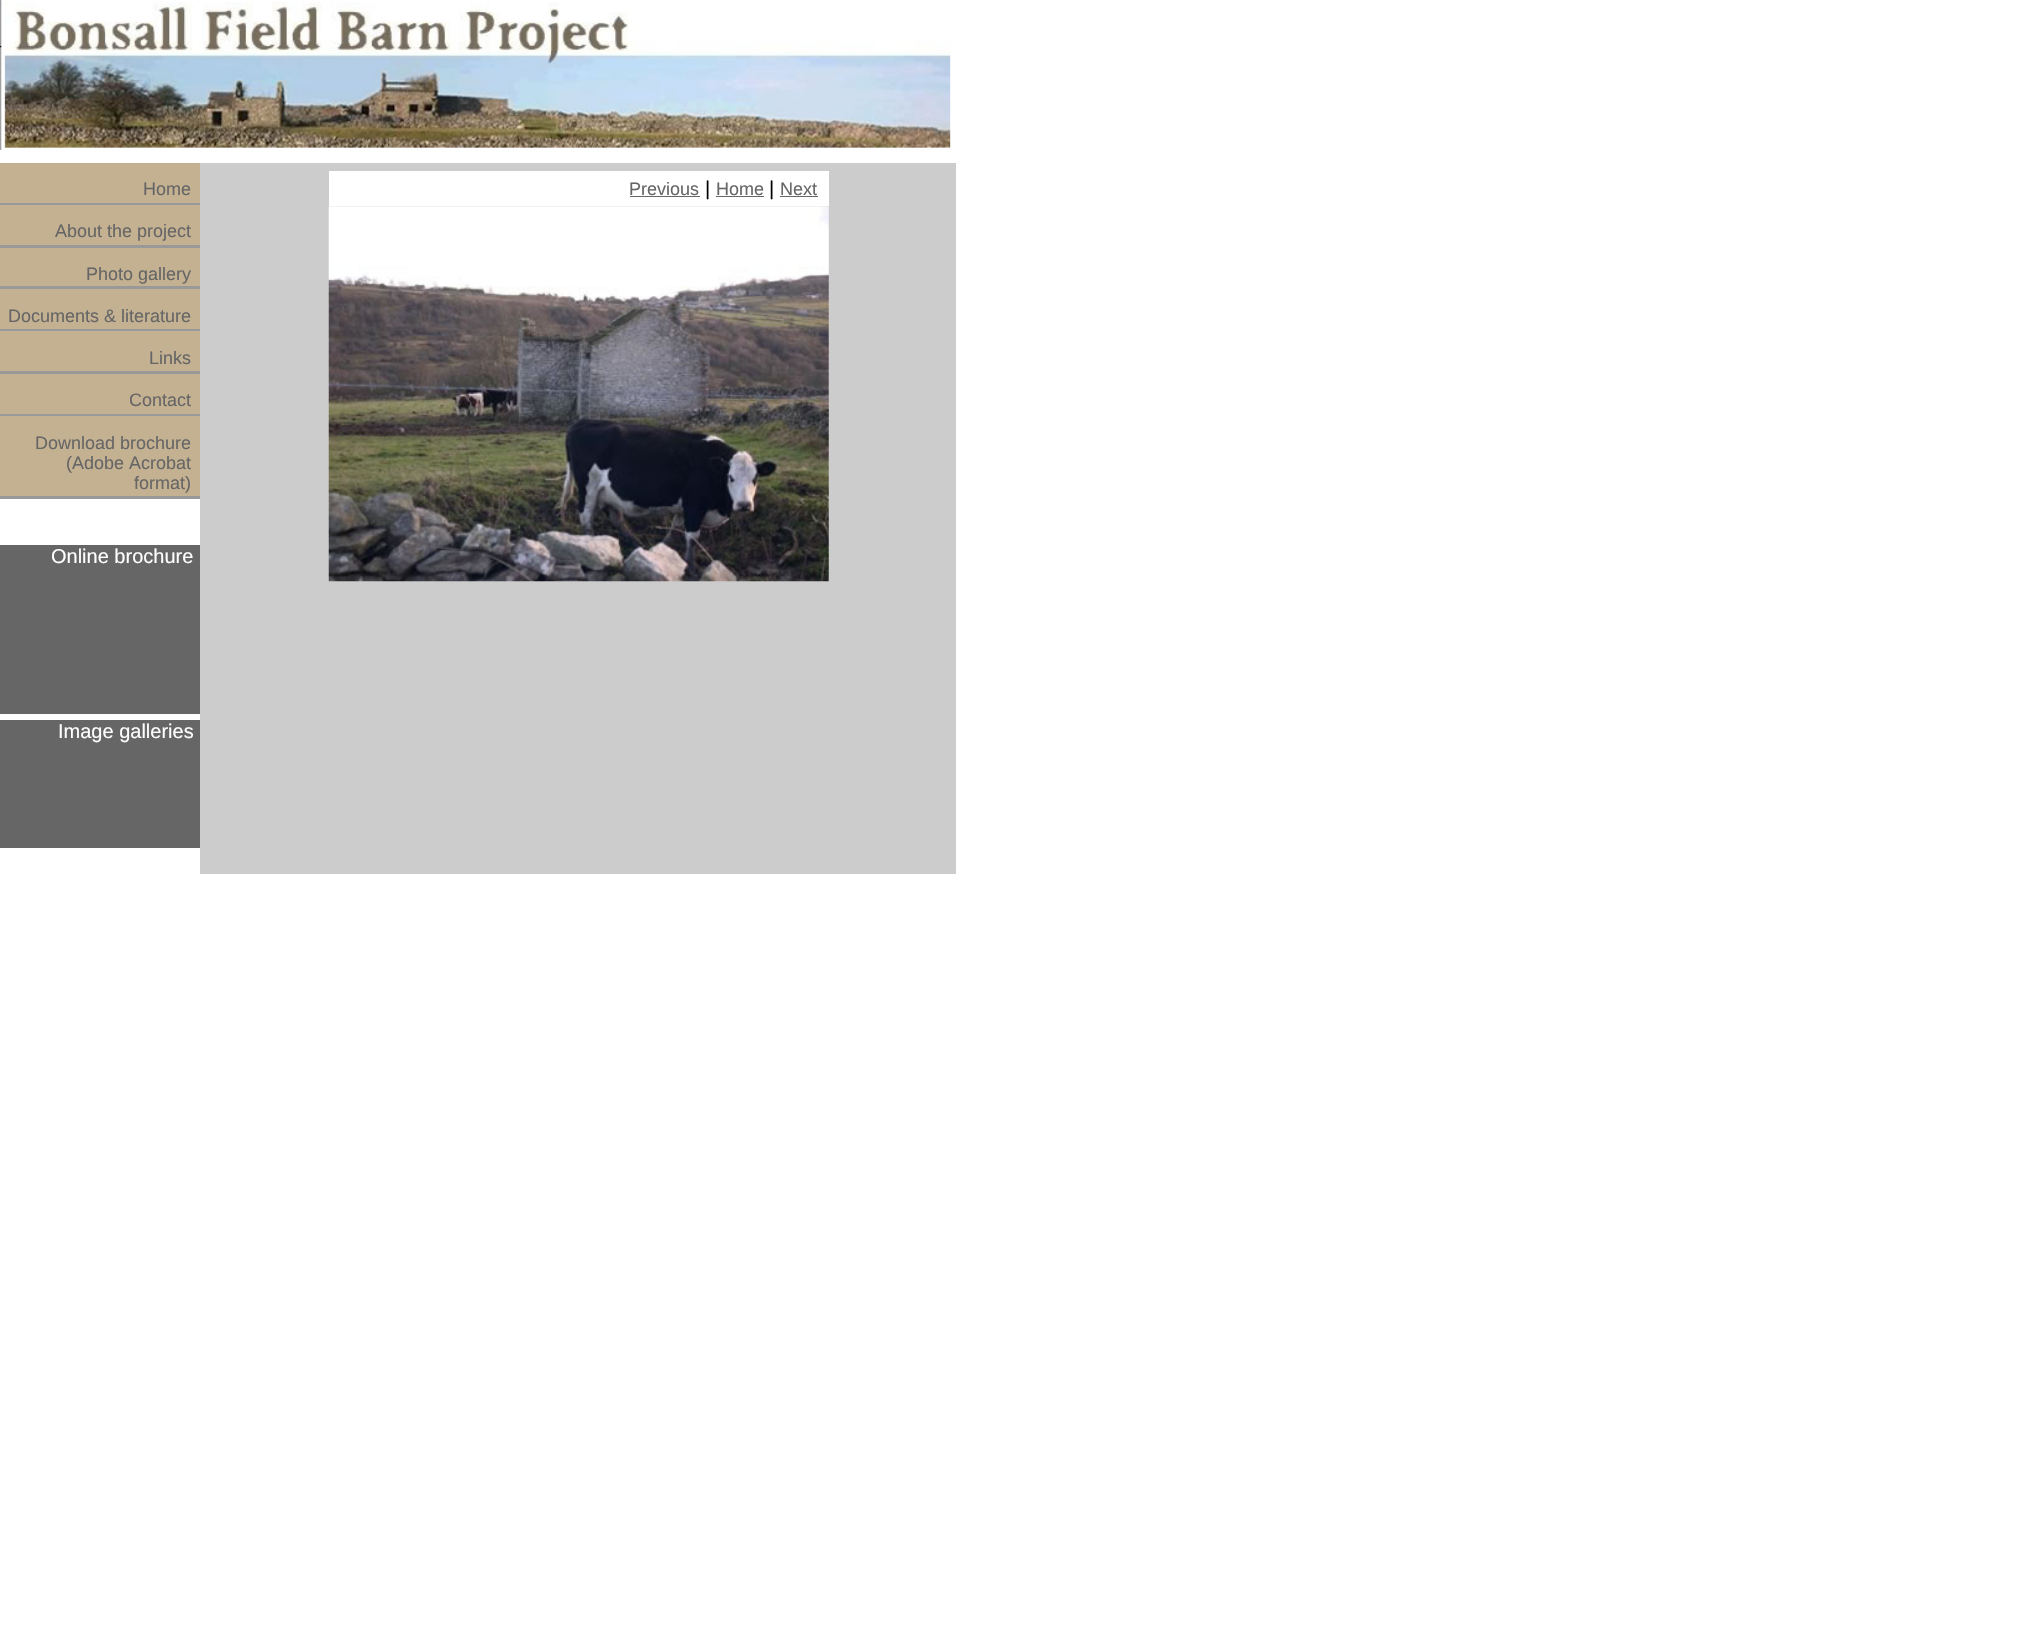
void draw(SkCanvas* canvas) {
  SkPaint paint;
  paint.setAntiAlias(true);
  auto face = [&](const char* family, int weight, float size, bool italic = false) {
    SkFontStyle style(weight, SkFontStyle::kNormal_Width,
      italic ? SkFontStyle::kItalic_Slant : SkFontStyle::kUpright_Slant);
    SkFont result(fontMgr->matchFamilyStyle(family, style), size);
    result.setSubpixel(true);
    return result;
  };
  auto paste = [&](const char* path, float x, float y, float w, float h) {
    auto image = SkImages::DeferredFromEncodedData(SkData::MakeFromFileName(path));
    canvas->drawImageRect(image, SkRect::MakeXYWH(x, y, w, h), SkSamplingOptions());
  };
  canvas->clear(0xffffffff);
  paste("img/1.png", 0, 0, 951, 150);
  {
    const struct { float x, y, w, h; SkColor color; } items[] = {
      {0, 203, 200, 2, 0xff999999},
      {0, 163, 200, 40, 0xffc4b191},
      {0, 245, 200, 3, 0xff999999},
      {0, 205, 200, 40, 0xffc4b191},
      {0, 286, 200, 3, 0xff999999},
      {0, 248, 200, 38, 0xffc4b191},
      {0, 329, 200, 2, 0xff999999},
      {0, 289, 200, 40, 0xffc4b191},
      {0, 371, 200, 3, 0xff999999},
      {0, 331, 200, 40, 0xffc4b191},
      {0, 414, 200, 2, 0xff999999},
      {0, 374, 200, 40, 0xffc4b191},
      {0, 496, 200, 3, 0xff999999},
      {0, 416, 200, 80, 0xffc4b191},
      {0, 545, 200, 169, 0xff666666},
      {0, 720, 200, 128, 0xff666666},
      {200, 163, 756, 711, 0xffcccccc},
      {329, 171, 500, 35, 0xffffffff},
      {630, 196, 70, 1, 0xff666666},
      {716, 196, 48, 1, 0xff666666},
      {780, 196, 38, 1, 0xff666666},
    };
    for (auto [x, y, w, h, color] : items) {
      paint.setColor(color);
      canvas->drawRect(SkRect::MakeXYWH(x, y, w, h), paint);
    }
  }
  paste("img/2.png", 328, 206, 501, 376);
  auto f0 = face("Liberation Sans", 400, 18);
  {
    const struct { const char* s; float x, y; } items[] = {
      {"Home", 143, 195},
      {"About the project", 55, 237},
      {"Photo gallery", 86, 280},
      {"Documents & literature", 8, 322},
      {"Links", 149, 364},
      {"Contact", 129, 406},
      {"Download brochure", 35, 449},
      {"(Adobe Acrobat", 66, 469},
      {"format)", 134, 489},
    };
    for (auto [s, x, y] : items) {
      canvas->drawString(s, x, y, f0, paint);
    }
  }
  auto f1 = face("Liberation Sans", 400, 20);
  paint.setColor(0xffffffff);
  canvas->drawString("Online brochure", 51, 563, f1, paint);
  canvas->drawString("Image galleries", 58, 738, f1, paint);
  paint.setColor(0xff666666);
  canvas->drawString("Previous", 629, 195, f0, paint);
  paint.setColor(0xff000000);
  canvas->drawString("|", 705, 195, f1, paint);
  paint.setColor(0xff666666);
  canvas->drawString("Home", 716, 195, f0, paint);
  paint.setColor(0xff000000);
  canvas->drawString("|", 769, 195, f1, paint);
  paint.setColor(0xff666666);
  canvas->drawString("Next", 780, 195, f0, paint);
}
